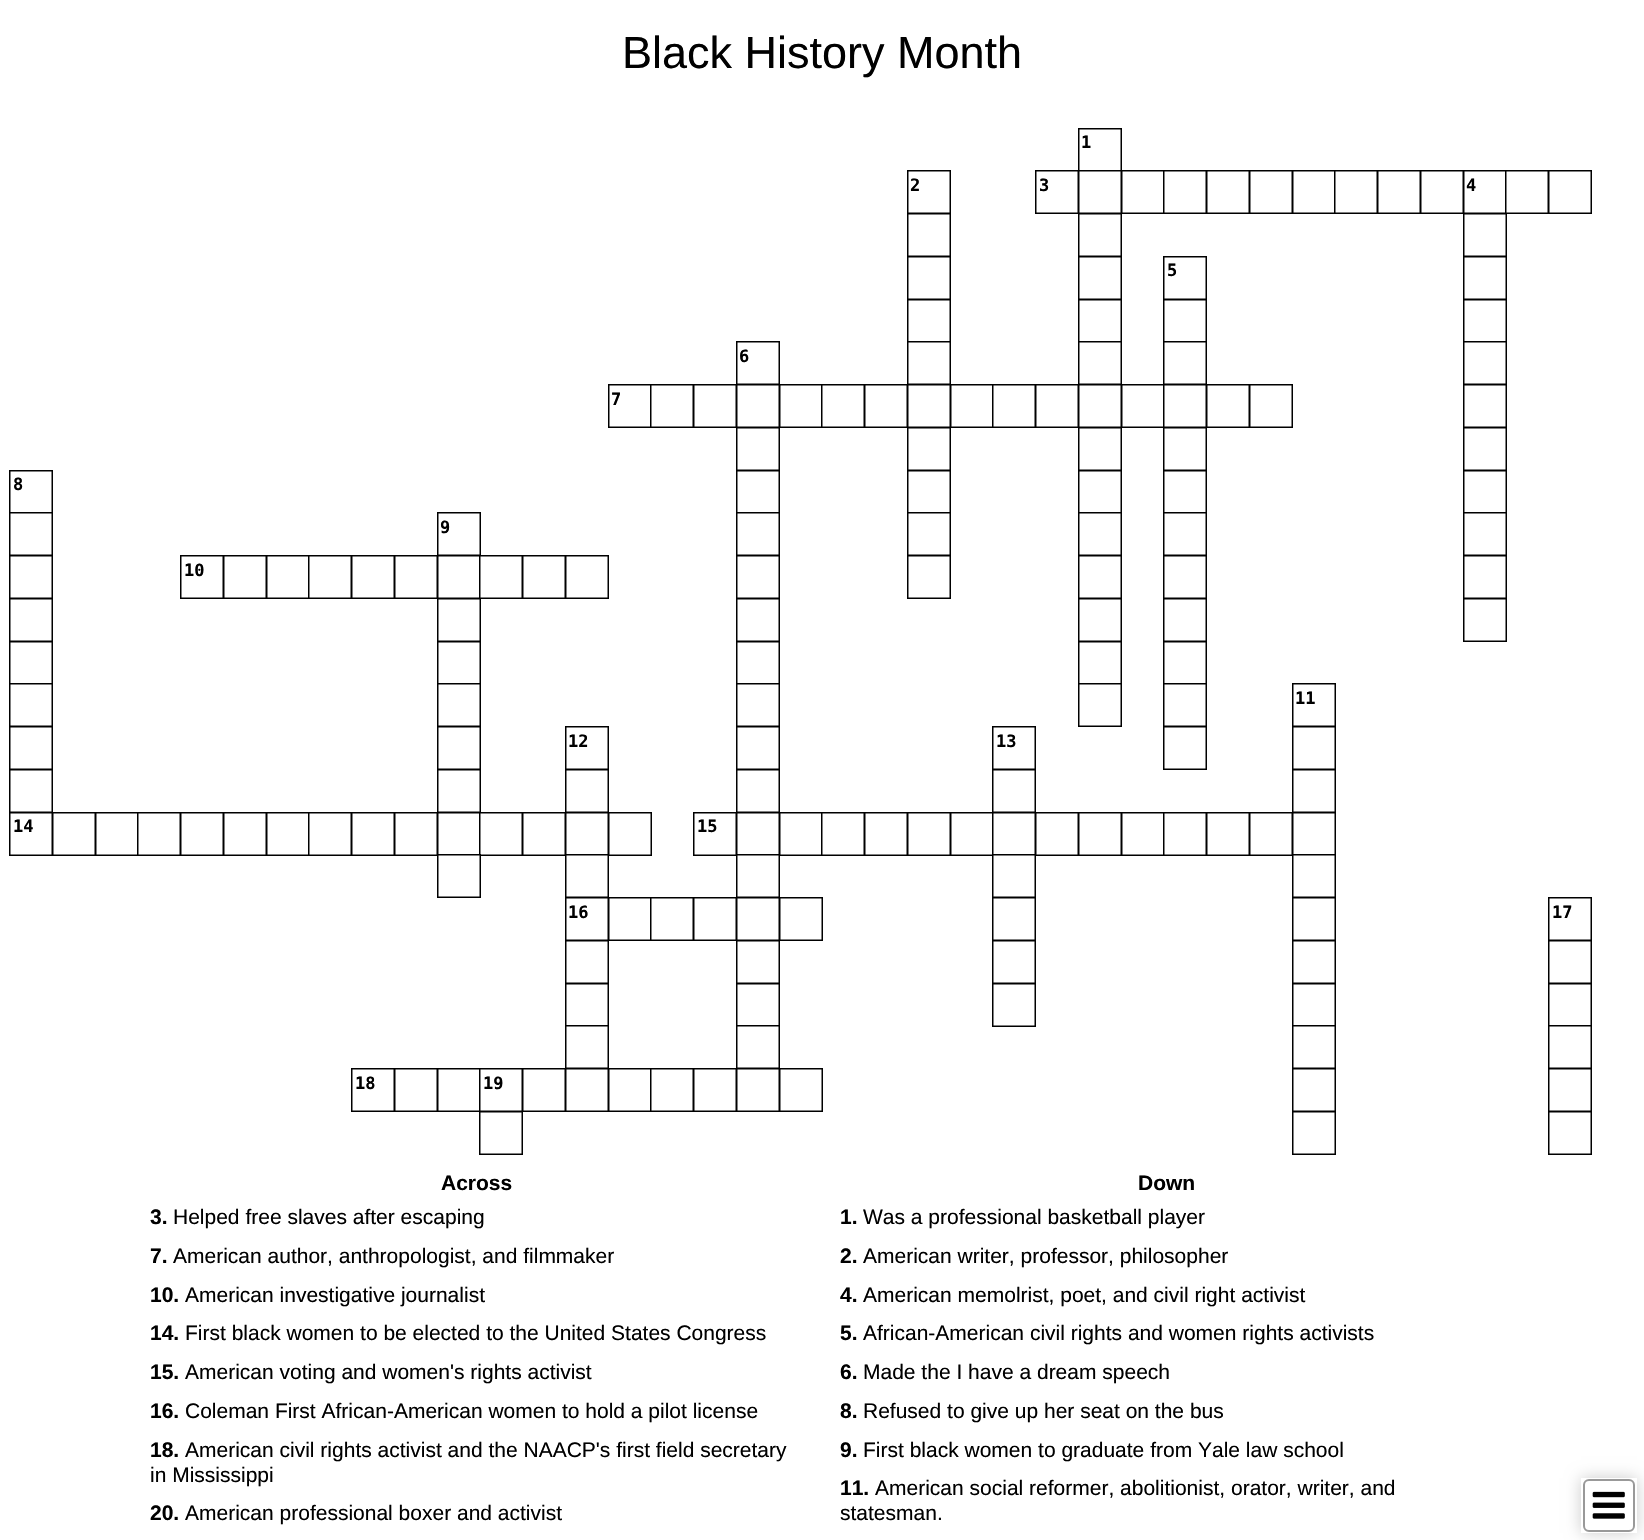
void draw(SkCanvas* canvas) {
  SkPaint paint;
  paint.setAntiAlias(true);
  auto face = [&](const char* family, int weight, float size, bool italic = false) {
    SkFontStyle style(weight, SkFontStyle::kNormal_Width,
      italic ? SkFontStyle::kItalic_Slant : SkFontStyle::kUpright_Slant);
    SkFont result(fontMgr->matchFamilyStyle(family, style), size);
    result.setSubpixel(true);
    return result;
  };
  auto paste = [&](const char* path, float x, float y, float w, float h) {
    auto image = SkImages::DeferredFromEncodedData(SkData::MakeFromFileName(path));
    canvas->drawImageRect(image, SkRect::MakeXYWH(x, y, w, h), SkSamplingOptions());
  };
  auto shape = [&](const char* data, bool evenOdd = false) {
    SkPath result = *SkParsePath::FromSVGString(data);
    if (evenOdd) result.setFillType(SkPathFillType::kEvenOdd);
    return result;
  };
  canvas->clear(0xffffffff);
  paste("img/1.png", 9, 128, 1583, 1027);
  canvas->save();
  canvas->clipPath(shape("M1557 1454H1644V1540H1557ZM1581 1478H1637V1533H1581Z", true), true);
  paint.setColor(0xffcccccc);
  paint.setMaskFilter(SkMaskFilter::MakeBlur(kNormal_SkBlurStyle, 7.5f));
  canvas->drawRect(SkRect::MakeXYWH(1581, 1478, 56, 55), paint);
  paint.setMaskFilter(nullptr);
  canvas->restore();
  paste("img/2.png", 1592, 1491, 33, 28);
  paint.setStroke(true);
  paint.setStrokeWidth(2);
  paint.setColor(0xff999999);
  canvas->drawRoundRect(SkRect::MakeXYWH(1584, 1480, 50, 51), 5, 5, paint);
  auto f0 = face("Liberation Sans", 400, 45);
  paint.setStroke(false);
  paint.setColor(0xff000000);
  canvas->drawString("Black History Month", 622, 68, f0, paint);
  auto f1 = face("DejaVu Sans Mono", 700, 17);
  {
    const struct { const char* s; float x, y; } items[] = {
      {"1", 1081, 148},
      {"2", 910, 191},
      {"3", 1039, 191},
      {"4", 1466, 191},
      {"5", 1167, 276},
      {"6", 739, 362},
      {"7", 611, 405},
      {"8", 13, 490},
      {"9", 440, 533},
      {"10", 184, 576},
      {"11", 1295, 704},
      {"12", 568, 747},
      {"13", 996, 747},
      {"14", 13, 832},
      {"15", 697, 832},
      {"16", 568, 918},
      {"17", 1552, 918},
      {"18", 355, 1089},
      {"19", 483, 1089},
    };
    for (auto [s, x, y] : items) {
      canvas->drawString(s, x, y, f1, paint);
    }
  }
  auto f2 = face("Liberation Sans", 700, 21);
  canvas->drawString("Across", 441, 1190, f2, paint);
  canvas->drawString("3.", 150, 1224, f2, paint);
  auto f3 = face("Liberation Sans", 400, 21);
  canvas->drawString("Helped free slaves after escaping", 173, 1224, f3, paint);
  canvas->drawString("7.", 150, 1263, f2, paint);
  canvas->drawString("American author, anthropologist, and filmmaker", 173, 1263, f3, paint);
  canvas->drawString("10.", 150, 1302, f2, paint);
  canvas->drawString("American investigative journalist", 185, 1302, f3, paint);
  canvas->drawString("14.", 150, 1340, f2, paint);
  canvas->drawString("First black women to be elected to the United States Congress", 185, 1340, f3, paint);
  canvas->drawString("15.", 150, 1379, f2, paint);
  canvas->drawString("American voting and women's rights activist", 185, 1379, f3, paint);
  canvas->drawString("16.", 150, 1418, f2, paint);
  canvas->drawString("Coleman First African-American women to hold a pilot license", 185, 1418, f3, paint);
  canvas->drawString("18.", 150, 1457, f2, paint);
  canvas->drawString("American civil rights activist and the NAACP's first field secretary", 185, 1457, f3, paint);
  canvas->drawString("in Mississippi", 150, 1482, f3, paint);
  canvas->drawString("20.", 150, 1520, f2, paint);
  canvas->drawString("American professional boxer and activist", 185, 1520, f3, paint);
  canvas->drawString("Down", 1138, 1190, f2, paint);
  canvas->drawString("1.", 840, 1224, f2, paint);
  canvas->drawString("Was a professional basketball player", 863, 1224, f3, paint);
  canvas->drawString("2.", 840, 1263, f2, paint);
  canvas->drawString("American writer, professor, philosopher", 863, 1263, f3, paint);
  canvas->drawString("4.", 840, 1302, f2, paint);
  canvas->drawString("American memolrist, poet, and civil right activist", 863, 1302, f3, paint);
  canvas->drawString("5.", 840, 1340, f2, paint);
  canvas->drawString("African-American civil rights and women rights activists", 863, 1340, f3, paint);
  canvas->drawString("6.", 840, 1379, f2, paint);
  canvas->drawString("Made the I have a dream speech", 863, 1379, f3, paint);
  canvas->drawString("8.", 840, 1418, f2, paint);
  canvas->drawString("Refused to give up her seat on the bus", 863, 1418, f3, paint);
  canvas->drawString("9.", 840, 1457, f2, paint);
  canvas->drawString("First black women to graduate from Yale law school", 863, 1457, f3, paint);
  canvas->drawString("11.", 840, 1495, f2, paint);
  canvas->drawString("American social reformer, abolitionist, orator, writer, and", 875, 1495, f3, paint);
  canvas->drawString("statesman.", 840, 1520, f3, paint);
}
